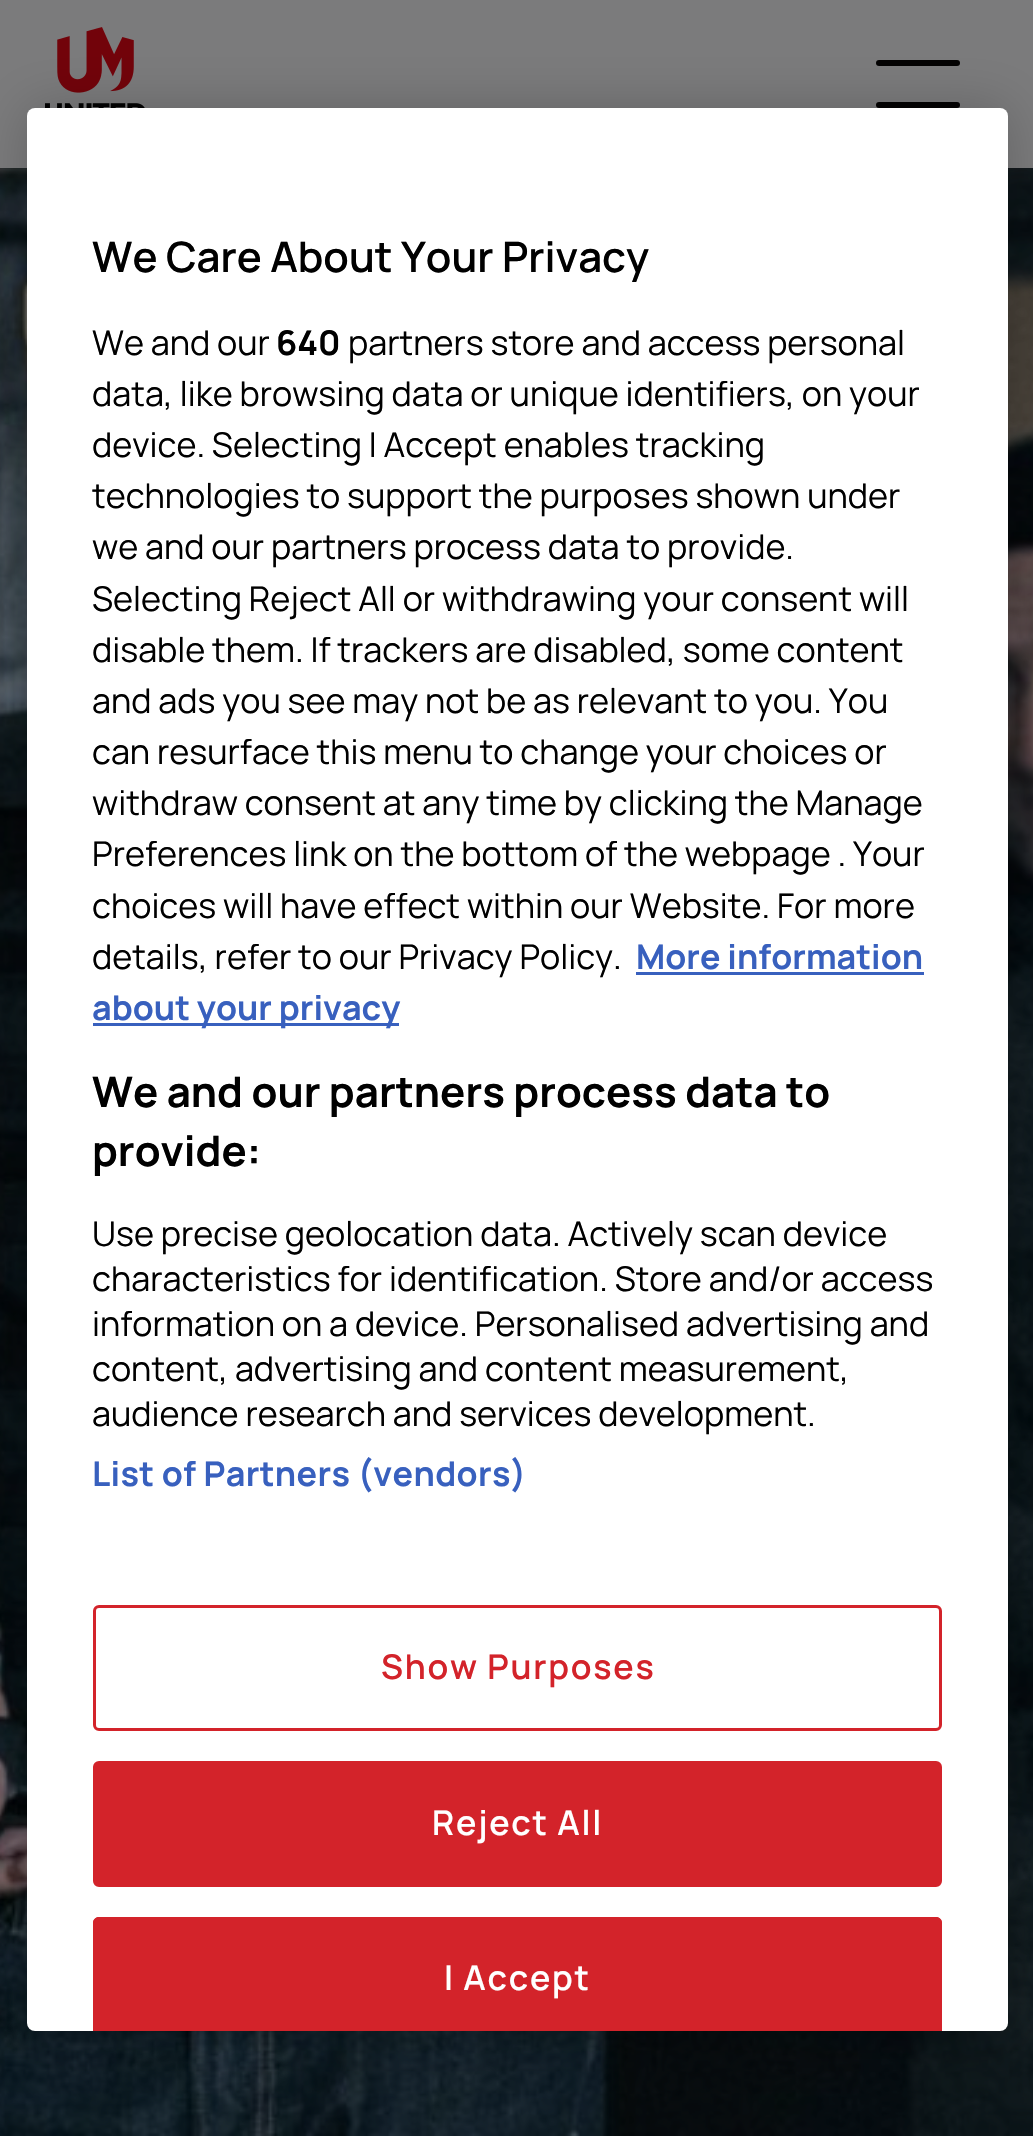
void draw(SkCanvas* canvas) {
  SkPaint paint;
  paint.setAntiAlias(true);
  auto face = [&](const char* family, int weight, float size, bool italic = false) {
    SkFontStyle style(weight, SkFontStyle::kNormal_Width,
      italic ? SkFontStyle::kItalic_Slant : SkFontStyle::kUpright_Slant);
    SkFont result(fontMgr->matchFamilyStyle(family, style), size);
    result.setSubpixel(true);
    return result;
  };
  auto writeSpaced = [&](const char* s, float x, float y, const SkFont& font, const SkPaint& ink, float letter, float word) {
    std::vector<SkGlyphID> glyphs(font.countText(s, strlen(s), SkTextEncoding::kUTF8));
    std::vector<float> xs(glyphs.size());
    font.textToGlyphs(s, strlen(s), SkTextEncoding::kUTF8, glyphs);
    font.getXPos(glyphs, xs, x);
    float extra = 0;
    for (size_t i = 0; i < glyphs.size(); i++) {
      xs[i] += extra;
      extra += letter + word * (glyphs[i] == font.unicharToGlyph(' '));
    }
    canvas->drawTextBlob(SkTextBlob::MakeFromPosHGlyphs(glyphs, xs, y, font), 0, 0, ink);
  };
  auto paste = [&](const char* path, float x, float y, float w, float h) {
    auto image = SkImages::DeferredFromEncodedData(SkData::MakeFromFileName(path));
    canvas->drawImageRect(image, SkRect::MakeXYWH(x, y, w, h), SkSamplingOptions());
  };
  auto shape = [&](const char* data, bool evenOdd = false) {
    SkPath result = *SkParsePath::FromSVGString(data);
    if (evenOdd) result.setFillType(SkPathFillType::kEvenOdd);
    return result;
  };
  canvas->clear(0xffffffff);
  paste("img/2.png", 0, 168, 1033, 1968);
  paint.setColor(0x14000000);
  paint.setMaskFilter(SkMaskFilter::MakeBlur(kNormal_SkBlurStyle, 6));
  canvas->drawRect(SkRect::MakeXYWH(0, 6, 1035, 168), paint);
  paint.setMaskFilter(nullptr);
  paint.setColor(0xff7b7b7c);
  canvas->drawRect(SkRect::MakeXYWH(0, 0, 1033, 168), paint);
  paste("img/1.png", 45, 27, 100, 81);
  paint.setColor(0xff030202);
  canvas->drawRoundRect(SkRect::MakeXYWH(876, 60, 84, 6), 3, 3, paint);
  canvas->drawRoundRect(SkRect::MakeXYWH(876, 102, 84, 6), 3, 3, paint);
  paint.setColor(0x33000000);
  paint.setMaskFilter(SkMaskFilter::MakeBlur(kNormal_SkBlurStyle, 27));
  canvas->drawRoundRect(SkRect::MakeXYWH(27, 108, 981, 1923), 8, 8, paint);
  paint.setMaskFilter(nullptr);
  paint.setColor(0xffffffff);
  canvas->drawRoundRect(SkRect::MakeXYWH(27, 108, 981, 1923), 8, 8, paint);
  paint.setColor(0xff3860be);
  canvas->drawRect(SkRect::MakeXYWH(636, 972, 288, 3), paint);
  canvas->drawRect(SkRect::MakeXYWH(93, 1023, 306, 3), paint);
  paint.setStroke(true);
  paint.setStrokeWidth(3);
  paint.setColor(0xffd3232a);
  canvas->drawRoundRect(SkRect::MakeXYWH(94.5f, 1606.5f, 846, 123), 4.5f, 4.5f, paint);
  paint.setStroke(false);
  canvas->drawRoundRect(SkRect::MakeXYWH(94.5f, 1762.5f, 846, 123), 4.5f, 4.5f, paint);
  paint.setStroke(true);
  canvas->drawRoundRect(SkRect::MakeXYWH(94.5f, 1762.5f, 846, 123), 4.5f, 4.5f, paint);
  paint.setStroke(false);
  canvas->drawPath(shape("M99 1917H936C939.5 1917 942 1919.5 942 1923V2031H93V1923C93 1919.5 95.5 1917 99 1917Z"), paint);
  canvas->drawPath(shape("M99 1917C96 1917 93 1920 93 1923V2031H96V1923C96 1921 97 1920 99 1920H936C938 1920 939 1921 939 1923V2031H942V1923C942 1920 939 1917 936 1917Z"), paint);
  auto f0 = face("Manrope", 600, 42);
  paint.setColor(0xff000000);
  canvas->drawString("We Care About Your Privacy", 92, 272, f0, paint);
  auto f1 = face("Manrope", 400, 34.15f);
  canvas->drawString("We and our", 92, 355, f1, paint);
  auto f2 = face("Manrope", 700, 34.15f);
  canvas->drawString("640", 276, 355, f2, paint);
  {
    const struct { const char* s; float x, y; } items[] = {
      {"partners store and access personal", 348, 355},
      {"data, like browsing data or unique identifiers, on your", 92, 406},
      {"device. Selecting I Accept enables tracking", 92, 457},
      {"technologies to support the purposes shown under", 92, 508},
      {"we and our partners process data to provide.", 92, 559},
      {"Selecting Reject All or withdrawing your consent will", 92, 611},
      {"disable them. If trackers are disabled, some content", 92, 662},
      {"and ads you see may not be as relevant to you. You", 92, 713},
      {"can resurface this menu to change your choices or", 92, 764},
      {"withdraw consent at any time by clicking the Manage", 92, 815},
      {"Preferences link on the bottom of the webpage . Your", 92, 866},
      {"choices will have effect within our Website. For more", 92, 918},
      {"details, refer to our Privacy Policy.", 92, 969},
    };
    for (auto [s, x, y] : items) {
      canvas->drawString(s, x, y, f1, paint);
    }
  }
  paint.setColor(0xff3860be);
  canvas->drawString("More information", 636, 969, f2, paint);
  canvas->drawString("about your privacy", 92, 1020, f2, paint);
  auto f3 = face("Manrope", 700, 42);
  paint.setColor(0xff000000);
  canvas->drawString("We and our partners process data to", 92, 1107, f3, paint);
  canvas->drawString("provide:", 92, 1166, f3, paint);
  {
    const struct { const char* s; float x, y; } items[] = {
      {"Use precise geolocation data. Actively scan device", 92, 1246},
      {"characteristics for identification. Store and/or access", 92, 1291},
      {"information on a device. Personalised advertising and", 92, 1336},
      {"content, advertising and content measurement,", 92, 1381},
      {"audience research and services development.", 92, 1426},
    };
    for (auto [s, x, y] : items) {
      canvas->drawString(s, x, y, f1, paint);
    }
  }
  paint.setColor(0xff3860be);
  writeSpaced("List of Partners (vendors)", 92, 1486, f2, paint, 0.35f, 0);
  auto f4 = face("Manrope", 600, 34.15f);
  paint.setColor(0xffd3232a);
  writeSpaced("Show Purposes", 381, 1679, f4, paint, 1.75f, 0);
  paint.setColor(0xffffffff);
  writeSpaced("Reject All", 432, 1835, f4, paint, 1.75f, 0);
  writeSpaced("I Accept", 444, 1990, f4, paint, 1.75f, 0);
}
